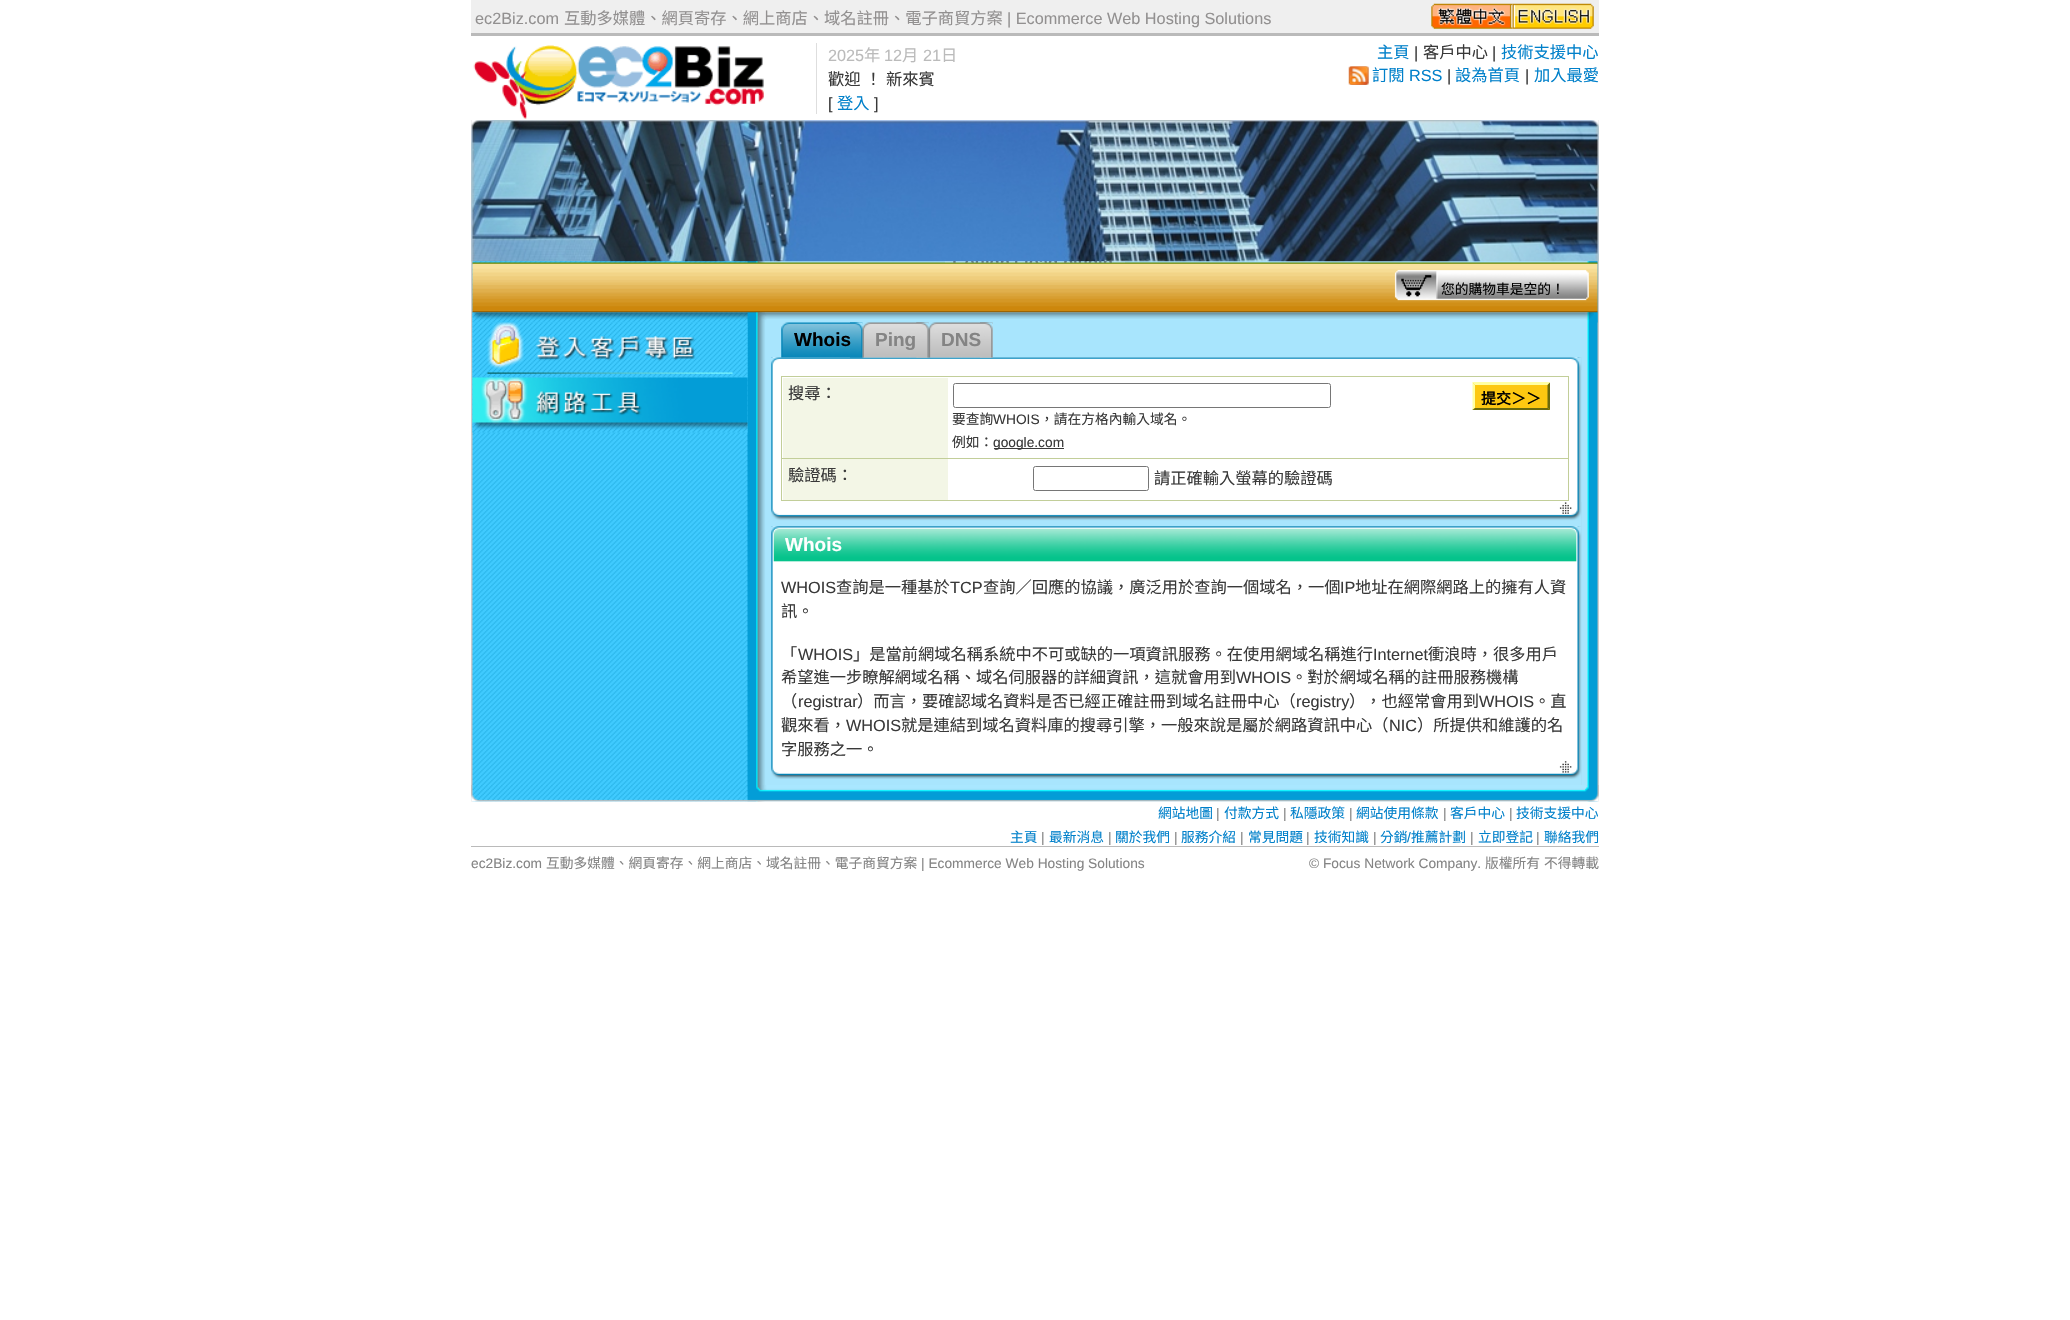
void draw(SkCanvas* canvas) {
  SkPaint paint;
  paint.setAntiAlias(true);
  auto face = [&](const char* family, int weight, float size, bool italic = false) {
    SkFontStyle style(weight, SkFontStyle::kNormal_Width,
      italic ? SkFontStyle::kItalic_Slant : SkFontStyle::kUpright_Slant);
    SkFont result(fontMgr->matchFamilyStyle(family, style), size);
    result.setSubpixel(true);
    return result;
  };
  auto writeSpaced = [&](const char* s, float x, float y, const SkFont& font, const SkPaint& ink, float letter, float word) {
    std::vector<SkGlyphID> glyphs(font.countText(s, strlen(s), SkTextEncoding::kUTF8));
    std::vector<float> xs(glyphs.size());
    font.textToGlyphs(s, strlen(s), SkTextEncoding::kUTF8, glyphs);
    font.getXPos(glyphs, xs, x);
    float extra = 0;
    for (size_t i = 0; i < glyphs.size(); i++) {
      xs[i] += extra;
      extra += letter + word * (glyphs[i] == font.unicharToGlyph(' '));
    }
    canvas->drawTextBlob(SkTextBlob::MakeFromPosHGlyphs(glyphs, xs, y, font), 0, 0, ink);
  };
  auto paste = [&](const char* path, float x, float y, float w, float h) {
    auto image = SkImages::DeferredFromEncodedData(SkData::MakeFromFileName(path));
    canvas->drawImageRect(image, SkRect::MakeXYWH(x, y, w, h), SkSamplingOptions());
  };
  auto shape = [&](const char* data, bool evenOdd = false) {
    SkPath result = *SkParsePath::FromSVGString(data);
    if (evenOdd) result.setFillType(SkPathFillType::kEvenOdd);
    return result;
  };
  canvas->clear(0xffffffff);
  paint.setColor(0xffefefef);
  canvas->drawRect(SkRect::MakeXYWH(471, 0, 1128, 33), paint);
  paint.setColor(0xffbababa);
  canvas->drawRect(SkRect::MakeXYWH(471, 33, 1128, 3), paint);
  paste("img/1.png", 1431, 3, 82, 26);
  paste("img/2.png", 1512, 3, 82, 26);
  paste("img/3.png", 473, 45, 291, 74);
  paint.setColor(0xffdedede);
  canvas->drawRect(SkRect::MakeXYWH(816, 43, 1, 71), paint);
  paste("img/4.png", 1348, 66, 21, 19);
  paste("img/5.png", 471, 120, 1128, 682);
  paste("img/6.png", 471, 120, 1128, 142);
  paste("img/8.png", 472, 262, 1126, 51);
  paste("img/7.png", 945, 261, 180, 2);
  paste("img/9.png", 1394, 269, 195, 32);
  paste("img/10.png", 472, 312, 1126, 11);
  paste("img/11.png", 472, 322, 276, 56);
  paste("img/12.png", 472, 377, 276, 56);
  paste("img/19.png", 771, 357, 811, 170);
  paste("img/20.png", 771, 357, 811, 13);
  paste("img/13.png", 781, 322, 82, 36);
  paste("img/14.png", 850, 322, 13, 36);
  paste("img/15.png", 862, 322, 67, 36);
  paste("img/16.png", 916, 322, 13, 36);
  paste("img/17.png", 928, 322, 65, 36);
  paste("img/18.png", 980, 322, 13, 36);
  {
    const struct { float x, y, w, h; SkColor color; } items[] = {
      {781, 376, 788, 1, 0xffc2ce99},
      {1568, 376, 1, 125, 0xffc2ce99},
      {781, 500, 788, 1, 0xffc2ce99},
      {781, 376, 1, 125, 0xffc2ce99},
      {783, 378, 165, 80, 0xfff3f6e6},
      {1473, 383, 77, 27, 0xfffdc811},
    };
    for (auto [x, y, w, h, color] : items) {
      paint.setColor(color);
      canvas->drawRect(SkRect::MakeXYWH(x, y, w, h), paint);
    }
  }
  paint.setColor(0xffffffa3);
  canvas->drawPath(shape("M1472 382H1550L1548 385H1475Z"), paint);
  paint.setColor(0xff6a6a0d);
  canvas->drawPath(shape("M1550 382.5V410L1547.5 407.5V385Z"), paint);
  canvas->drawPath(shape("M1550 410H1472L1475 408H1548Z"), paint);
  paint.setColor(0xffffffa3);
  canvas->drawPath(shape("M1472.5 410V382.5L1475 385V407.5Z"), paint);
  paint.setStroke(true);
  paint.setStrokeWidth(1);
  paint.setColor(0xff767676);
  canvas->drawRoundRect(SkRect::MakeXYWH(953.5f, 383.5f, 377, 24), 2, 2, paint);
  paint.setStroke(false);
  {
    const struct { float x, y, w, h; SkColor color; } items[] = {
      {994, 448, 70, 1, 0xff393939},
      {783, 459, 165, 41, 0xfff3f6e6},
      {781, 458, 788, 1, 0xffc2ce99},
    };
    for (auto [x, y, w, h, color] : items) {
      paint.setColor(color);
      canvas->drawRect(SkRect::MakeXYWH(x, y, w, h), paint);
    }
  }
  paint.setStroke(true);
  paint.setColor(0xff767676);
  canvas->drawRoundRect(SkRect::MakeXYWH(1033.5f, 466.5f, 115, 24), 2, 2, paint);
  paste("img/21.png", 771, 502, 811, 25);
  paste("img/22.png", 771, 526, 811, 259);
  paste("img/23.png", 771, 526, 811, 49);
  paste("img/24.png", 771, 760, 811, 25);
  paste("img/25.png", 471, 785, 1128, 17);
  paint.setStroke(false);
  paint.setColor(0xffbababa);
  canvas->drawRect(SkRect::MakeXYWH(471, 846, 1128, 1), paint);
  auto f0 = face("Liberation Sans", 400, 16.25f);
  paint.setColor(0xff929090);
  canvas->drawString("ec2Biz.com", 475, 24, f0, paint);
  auto f1 = face("Noto Sans CJK TC", 400, 16.25f);
  canvas->drawString("互動多媒體、網頁寄存、網上商店、域名註冊、電子商貿方案", 564, 24, f1, paint);
  canvas->drawString("| Ecommerce Web Hosting Solutions", 1007, 24, f0, paint);
  paint.setColor(0xffbbbbbb);
  canvas->drawString("2025", 828, 61, f0, paint);
  canvas->drawString("年", 864, 61, f1, paint);
  canvas->drawString("12", 884, 61, f0, paint);
  canvas->drawString("月", 902, 61, f1, paint);
  canvas->drawString("21", 923, 61, f0, paint);
  canvas->drawString("日", 941, 61, f1, paint);
  paint.setColor(0xff393939);
  writeSpaced("歡迎 ！ 新來賓", 828, 85, f1, paint, 0, 1);
  canvas->drawString("[", 828, 109, f0, paint);
  paint.setColor(0xff0080ca);
  canvas->drawString("登入", 837, 109, f1, paint);
  paint.setColor(0xff393939);
  canvas->drawString("]", 874, 109, f0, paint);
  paint.setColor(0xff0080ca);
  canvas->drawString("主頁", 1377, 58, f1, paint);
  paint.setColor(0xff393939);
  canvas->drawString("|", 1414, 58, f0, paint);
  canvas->drawString("客戶中心", 1423, 58, f1, paint);
  canvas->drawString("|", 1492, 58, f0, paint);
  paint.setColor(0xff0080ca);
  canvas->drawString("技術支援中心", 1501, 58, f1, paint);
  canvas->drawString("訂閱", 1372, 81, f1, paint);
  canvas->drawString("RSS", 1409, 81, f0, paint);
  paint.setColor(0xff393939);
  canvas->drawString("|", 1447, 81, f0, paint);
  paint.setColor(0xff0080ca);
  canvas->drawString("設為首頁", 1455, 81, f1, paint);
  paint.setColor(0xff393939);
  canvas->drawString("|", 1525, 81, f0, paint);
  paint.setColor(0xff0080ca);
  canvas->drawString("加入最愛", 1534, 81, f1, paint);
  auto f2 = face("Noto Sans CJK TC", 400, 13.75f);
  paint.setColor(0xff000000);
  canvas->drawString("您的購物車是空的！", 1441, 294, f2, paint);
  auto f3 = face("Liberation Sans", 700, 19);
  canvas->drawString("Whois", 794, 346, f3, paint);
  paint.setColor(0xff848484);
  canvas->drawString("Ping", 875, 346, f3, paint);
  canvas->drawString("DNS", 941, 346, f3, paint);
  paint.setColor(0xff393939);
  canvas->drawString("搜尋：", 788, 399, f1, paint);
  auto f4 = face("Noto Sans CJK TC", 700, 15);
  paint.setColor(0xff000000);
  canvas->drawString("提交＞＞", 1481, 404, f4, paint);
  paint.setColor(0xff393939);
  canvas->drawString("要查詢", 952, 424, f2, paint);
  auto f5 = face("Liberation Sans", 400, 13.75f);
  canvas->drawString("WHOIS", 993, 424, f5, paint);
  canvas->drawString("，請在方格內輸入域名。", 1040, 424, f2, paint);
  canvas->drawString("例如：", 952, 447, f2, paint);
  canvas->drawString("google.com", 993, 447, f5, paint);
  canvas->drawString("驗證碼：", 788, 481, f1, paint);
  canvas->drawString("請正確輸入螢幕的驗證碼", 1154, 484, f1, paint);
  paint.setColor(0xffffffff);
  canvas->drawString("Whois", 785, 551, f3, paint);
  paint.setColor(0xff393939);
  canvas->drawString("WHOIS", 781, 593, f0, paint);
  canvas->drawString("查詢是一種基於", 836, 593, f1, paint);
  canvas->drawString("TCP", 950, 593, f0, paint);
  canvas->drawString("查詢／回應的協議，廣泛用於查詢一個域名，一個", 983, 593, f1, paint);
  canvas->drawString("IP", 1340, 593, f0, paint);
  {
    const struct { const char* s; float x, y; } items[] = {
      {"地址在網際網路上的擁有人資", 1355, 593},
      {"訊。", 781, 617},
      {"「", 781, 660},
    };
    for (auto [s, x, y] : items) {
      canvas->drawString(s, x, y, f1, paint);
    }
  }
  canvas->drawString("WHOIS", 798, 660, f0, paint);
  canvas->drawString("」是當前網域名稱系統中不可或缺的一項資訊服務。在使用網域名稱進行", 853, 660, f1, paint);
  canvas->drawString("Internet", 1373, 660, f0, paint);
  canvas->drawString("衝浪時，很多用戶", 1428, 660, f1, paint);
  canvas->drawString("希望進一步瞭解網域名稱、域名伺服器的詳細資訊，這就會用到", 781, 683, f1, paint);
  canvas->drawString("WHOIS", 1236, 683, f0, paint);
  canvas->drawString("。對於網域名稱的註冊服務機構", 1291, 683, f1, paint);
  canvas->drawString("（", 781, 707, f1, paint);
  canvas->drawString("registrar", 798, 707, f0, paint);
  canvas->drawString("）而言，要確認域名資料是否已經正確註冊到域名註冊中心（", 857, 707, f1, paint);
  canvas->drawString("registry", 1296, 707, f0, paint);
  canvas->drawString("），也經常會用到", 1349, 707, f1, paint);
  canvas->drawString("WHOIS", 1479, 707, f0, paint);
  canvas->drawString("。直", 1534, 707, f1, paint);
  canvas->drawString("觀來看，", 781, 731, f1, paint);
  canvas->drawString("WHOIS", 846, 731, f0, paint);
  canvas->drawString("就是連結到域名資料庫的搜尋引擎，一般來說是屬於網路資訊中心（", 901, 731, f1, paint);
  canvas->drawString("NIC", 1389, 731, f0, paint);
  canvas->drawString("）所提供和維護的名", 1417, 731, f1, paint);
  canvas->drawString("字服務之一。", 781, 755, f1, paint);
  paint.setColor(0xff0080ca);
  canvas->drawString("網站地圖", 1158, 818, f2, paint);
  paint.setColor(0xff848484);
  canvas->drawString("|", 1216, 818, f5, paint);
  paint.setColor(0xff0080ca);
  canvas->drawString("付款方式", 1224, 818, f2, paint);
  paint.setColor(0xff848484);
  canvas->drawString("|", 1283, 818, f5, paint);
  paint.setColor(0xff0080ca);
  canvas->drawString("私隱政策", 1290, 818, f2, paint);
  paint.setColor(0xff848484);
  canvas->drawString("|", 1349, 818, f5, paint);
  paint.setColor(0xff0080ca);
  canvas->drawString("網站使用條款", 1356, 818, f2, paint);
  paint.setColor(0xff848484);
  canvas->drawString("|", 1443, 818, f5, paint);
  paint.setColor(0xff0080ca);
  canvas->drawString("客戶中心", 1450, 818, f2, paint);
  paint.setColor(0xff848484);
  canvas->drawString("|", 1509, 818, f5, paint);
  paint.setColor(0xff0080ca);
  canvas->drawString("技術支援中心", 1516, 818, f2, paint);
  canvas->drawString("主頁", 1010, 842, f2, paint);
  paint.setColor(0xff848484);
  canvas->drawString("|", 1041, 842, f5, paint);
  paint.setColor(0xff0080ca);
  canvas->drawString("最新消息", 1049, 842, f2, paint);
  paint.setColor(0xff848484);
  canvas->drawString("|", 1108, 842, f5, paint);
  paint.setColor(0xff0080ca);
  canvas->drawString("關於我們", 1115, 842, f2, paint);
  paint.setColor(0xff848484);
  canvas->drawString("|", 1174, 842, f5, paint);
  paint.setColor(0xff0080ca);
  canvas->drawString("服務介紹", 1181, 842, f2, paint);
  paint.setColor(0xff848484);
  canvas->drawString("|", 1240, 842, f5, paint);
  paint.setColor(0xff0080ca);
  canvas->drawString("常見問題", 1248, 842, f2, paint);
  paint.setColor(0xff848484);
  canvas->drawString("|", 1306, 842, f5, paint);
  paint.setColor(0xff0080ca);
  canvas->drawString("技術知識", 1314, 842, f2, paint);
  paint.setColor(0xff848484);
  canvas->drawString("|", 1373, 842, f5, paint);
  paint.setColor(0xff0080ca);
  canvas->drawString("分銷", 1380, 842, f2, paint);
  canvas->drawString("/", 1407, 842, f5, paint);
  canvas->drawString("推薦計劃", 1411, 842, f2, paint);
  paint.setColor(0xff848484);
  canvas->drawString("|", 1470, 842, f5, paint);
  paint.setColor(0xff0080ca);
  canvas->drawString("立即登記", 1478, 842, f2, paint);
  paint.setColor(0xff848484);
  canvas->drawString("|", 1536, 842, f5, paint);
  paint.setColor(0xff0080ca);
  canvas->drawString("聯絡我們", 1544, 842, f2, paint);
  paint.setColor(0xff848484);
  canvas->drawString("ec2Biz.com", 471, 868, f5, paint);
  canvas->drawString("互動多媒體、網頁寄存、網上商店、域名註冊、電子商貿方案", 546, 868, f2, paint);
  canvas->drawString("| Ecommerce Web Hosting Solutions", 921, 868, f5, paint);
  canvas->drawString("© Focus Network Company.", 1309, 868, f5, paint);
  canvas->drawString("版權所有", 1485, 868, f2, paint);
  canvas->drawString("不得轉載", 1544, 868, f2, paint);
}
